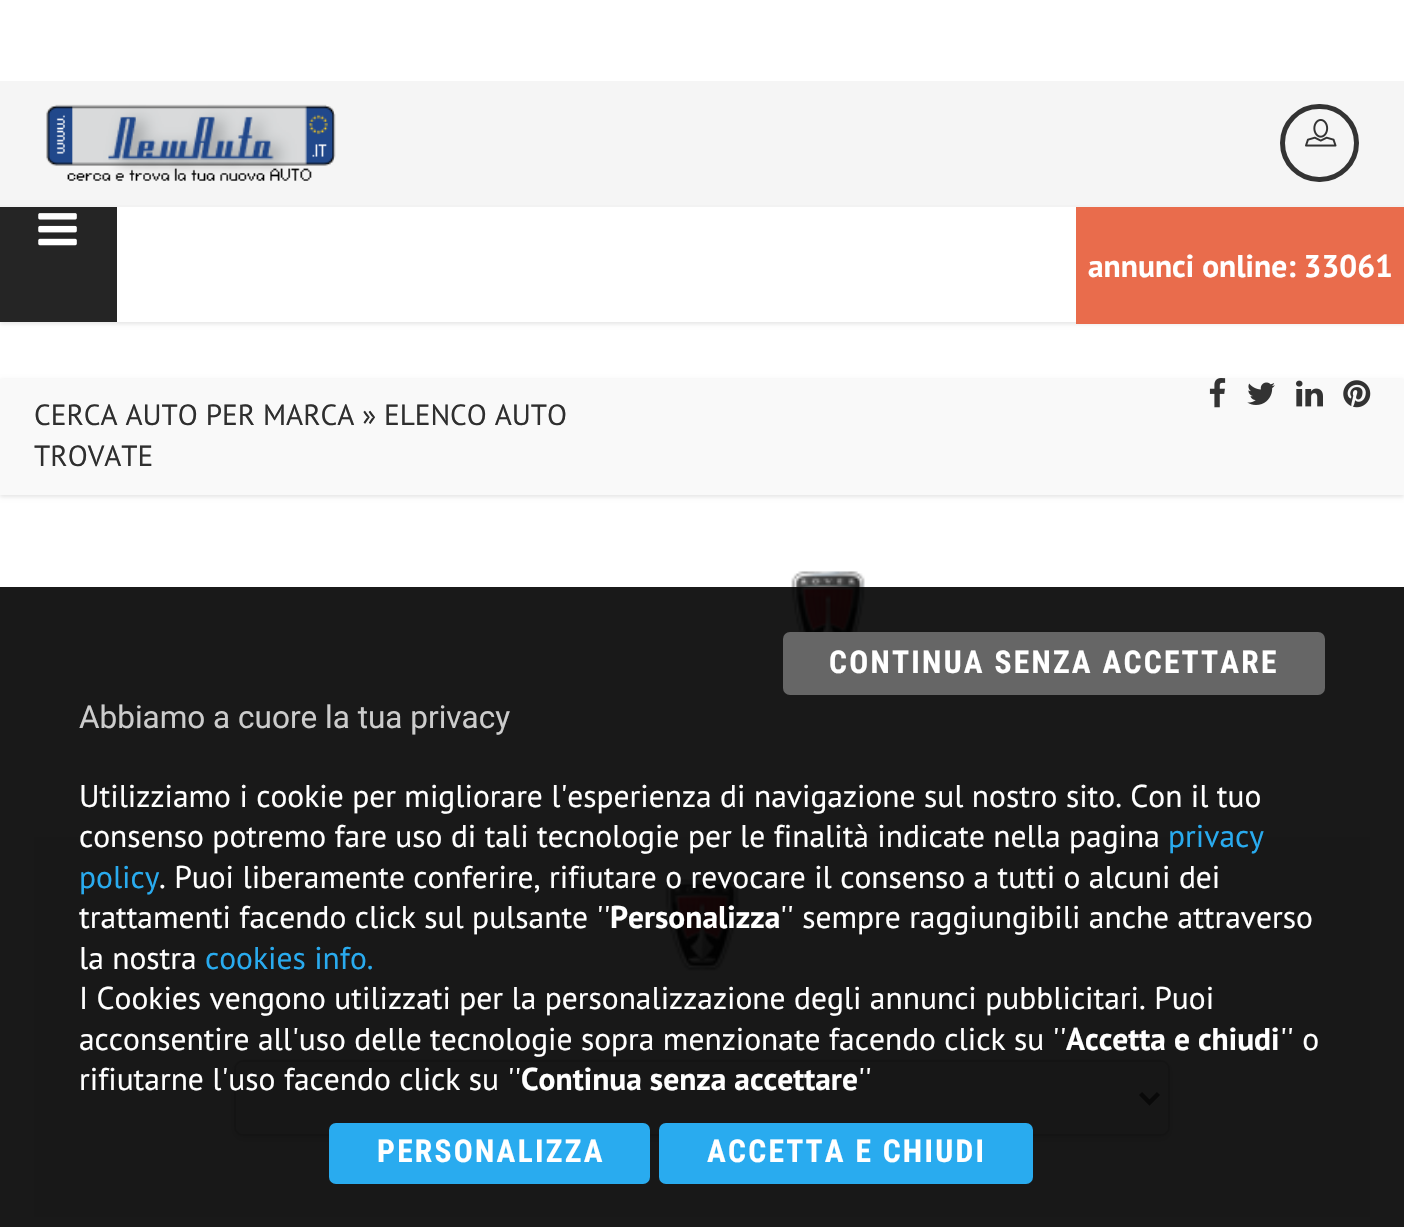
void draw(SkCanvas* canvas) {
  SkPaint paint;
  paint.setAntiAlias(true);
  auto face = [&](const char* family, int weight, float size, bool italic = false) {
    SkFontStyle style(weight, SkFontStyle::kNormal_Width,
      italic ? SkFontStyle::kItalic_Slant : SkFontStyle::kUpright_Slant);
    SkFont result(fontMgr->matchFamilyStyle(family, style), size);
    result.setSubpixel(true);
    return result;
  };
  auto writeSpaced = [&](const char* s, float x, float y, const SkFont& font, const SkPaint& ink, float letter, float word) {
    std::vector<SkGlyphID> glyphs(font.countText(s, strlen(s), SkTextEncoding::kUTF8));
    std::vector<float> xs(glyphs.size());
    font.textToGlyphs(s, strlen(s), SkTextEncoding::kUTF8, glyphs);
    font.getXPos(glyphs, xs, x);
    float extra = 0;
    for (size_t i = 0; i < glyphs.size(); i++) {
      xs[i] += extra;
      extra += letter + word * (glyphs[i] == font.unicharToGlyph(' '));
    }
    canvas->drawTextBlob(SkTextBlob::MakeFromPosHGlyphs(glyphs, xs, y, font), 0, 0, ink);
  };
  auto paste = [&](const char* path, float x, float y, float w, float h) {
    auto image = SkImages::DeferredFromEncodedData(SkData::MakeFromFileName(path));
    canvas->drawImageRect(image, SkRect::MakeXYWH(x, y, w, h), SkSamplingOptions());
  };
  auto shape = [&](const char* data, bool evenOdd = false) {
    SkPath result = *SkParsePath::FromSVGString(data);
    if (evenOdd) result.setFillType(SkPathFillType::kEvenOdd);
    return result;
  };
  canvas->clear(0xffffffff);
  canvas->save();
  canvas->clipPath(shape("M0 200H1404V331H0ZM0 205H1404V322H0Z", true), true);
  paint.setColor(0x1a000000);
  paint.setMaskFilter(SkMaskFilter::MakeBlur(kNormal_SkBlurStyle, 2));
  canvas->drawRect(SkRect::MakeXYWH(0, 207, 1404, 117), paint);
  paint.setMaskFilter(nullptr);
  canvas->restore();
  paint.setColor(0xfff2f2f2);
  canvas->drawRect(SkRect::MakeXYWH(0, 205, 1404, 2), paint);
  paint.setColor(0xfff5f5f5);
  canvas->drawRect(SkRect::MakeXYWH(0, 81, 1404, 124), paint);
  paste("img/1.png", 46, 104, 290, 77);
  paint.setStroke(true);
  paint.setStrokeWidth(5);
  paint.setColor(0xff333333);
  canvas->drawRoundRect(SkRect::MakeXYWH(1282.5f, 106.5f, 74, 73), 36.5f, 36.5f, paint);
  paste("img/2.png", 1305, 119, 32, 28);
  paint.setStroke(false);
  paint.setColor(0xb3ffffff);
  canvas->drawRect(SkRect::MakeXYWH(117, 321, 959, 1), paint);
  paint.setColor(0xff252525);
  canvas->drawRect(SkRect::MakeXYWH(0, 207, 117, 115), paint);
  paste("img/3.png", 38, 213, 39, 33);
  paint.setColor(0xffe96c4c);
  canvas->drawRect(SkRect::MakeXYWH(1076, 207, 328, 117), paint);
  paint.setColor(0x1a000000);
  paint.setMaskFilter(SkMaskFilter::MakeBlur(kNormal_SkBlurStyle, 2));
  canvas->drawRect(SkRect::MakeXYWH(0, 380, 1404, 117), paint);
  paint.setMaskFilter(nullptr);
  paint.setColor(0xfff9f9f9);
  canvas->drawRect(SkRect::MakeXYWH(0, 379, 1404, 116), paint);
  paste("img/4.png", 1209, 378, 17, 30);
  paste("img/5.png", 1247, 382, 28, 23);
  paste("img/6.png", 1296, 380, 27, 27);
  paste("img/7.png", 1343, 380, 28, 28);
  paste("img/8.png", 791, 571, 74, 61);
  paint.setColor(0xffeeeeee);
  canvas->drawRect(SkRect::MakeXYWH(34, 837, 1336, 380), paint);
  paste("img/9.png", 665, 879, 74, 92);
  paint.setColor(0x12000000);
  paint.setMaskFilter(SkMaskFilter::MakeBlur(kNormal_SkBlurStyle, 2));
  canvas->drawRoundRect(SkRect::MakeXYWH(234, 1062, 936, 77), 9, 9, paint);
  paint.setMaskFilter(nullptr);
  paint.setColor(0xffebebeb);
  canvas->drawRoundRect(SkRect::MakeXYWH(235, 1061, 934, 74), 8, 8, paint);
  paint.setStroke(true);
  paint.setStrokeWidth(2);
  paint.setColor(0xffcccccc);
  canvas->drawRoundRect(SkRect::MakeXYWH(235, 1061, 934, 74), 8, 8, paint);
  paint.setStrokeWidth(4.5f);
  paint.setColor(0xff555555);
  canvas->drawPath(shape("M1140.5 1093.5L1149.5 1102.5L1158.5 1093.5"), paint);
  paint.setStroke(false);
  paint.setColor(0xe6000000);
  canvas->drawRect(SkRect::MakeXYWH(0, 587, 1404, 640), paint);
  paint.setColor(0xff666666);
  canvas->drawRoundRect(SkRect::MakeXYWH(783, 632, 542, 63), 7, 7, paint);
  paint.setColor(0xff29abef);
  canvas->drawRoundRect(SkRect::MakeXYWH(329, 1123, 321, 61), 7, 7, paint);
  canvas->drawRoundRect(SkRect::MakeXYWH(659, 1123, 374, 61), 7, 7, paint);
  auto f0 = face("PT Sans", 700, 31.5f);
  paint.setColor(0xffffffff);
  canvas->drawString("annunci online: 33061", 1088, 277, f0, paint);
  auto f1 = face("PT Sans", 400, 29.25f);
  paint.setColor(0xff2f2f2f);
  canvas->drawString("CERCA AUTO PER MARCA » ELENCO AUTO", 34, 425, f1, paint);
  canvas->drawString("TROVATE", 34, 466, f1, paint);
  auto f2 = face("Roboto Condensed", 700, 31.5f);
  paint.setColor(0xffffffff);
  writeSpaced("CONTINUA SENZA ACCETTARE", 829, 673, f2, paint, 2.25f, 0);
  auto f3 = face("Roboto", 400, 31.5f);
  paint.setColor(0xffcccccc);
  canvas->drawString("Abbiamo a cuore la tua privacy", 79, 728, f3, paint);
  auto f4 = face("PT Sans", 400, 31.5f);
  paint.setColor(0xffffffff);
  canvas->drawString("Utilizziamo i cookie per migliorare l'esperienza di navigazione sul nostro sito. Con il tuo", 79, 807, f4, paint);
  canvas->drawString("consenso potremo fare uso di tali tecnologie per le finalità indicate nella pagina", 79, 847, f4, paint);
  paint.setColor(0xff29abef);
  canvas->drawString("privacy", 1168, 847, f4, paint);
  canvas->drawString("policy", 79, 888, f4, paint);
  paint.setColor(0xffffffff);
  canvas->drawString(". Puoi liberamente conferire, rifiutare o revocare il consenso a tutti o alcuni dei", 159, 888, f4, paint);
  canvas->drawString("trattamenti facendo click sul pulsante ''", 79, 928, f4, paint);
  canvas->drawString("Personalizza", 610, 928, f0, paint);
  canvas->drawString("'' sempre raggiungibili anche attraverso", 780, 928, f4, paint);
  canvas->drawString("la nostra", 79, 969, f4, paint);
  paint.setColor(0xff29abef);
  canvas->drawString("cookies info.", 205, 969, f4, paint);
  paint.setColor(0xffffffff);
  canvas->drawString("I Cookies vengono utilizzati per la personalizzazione degli annunci pubblicitari. Puoi", 79, 1009, f4, paint);
  canvas->drawString("acconsentire all'uso delle tecnologie sopra menzionate facendo click su ''", 79, 1050, f4, paint);
  canvas->drawString("Accetta e chiudi", 1066, 1050, f0, paint);
  canvas->drawString("'' o", 1280, 1050, f4, paint);
  canvas->drawString("rifiutarne l'uso facendo click su ''", 79, 1090, f4, paint);
  canvas->drawString("Continua senza accettare", 521, 1090, f0, paint);
  canvas->drawString("''", 858, 1090, f4, paint);
  writeSpaced("PERSONALIZZA", 377, 1162, f2, paint, 2.25f, 0);
  writeSpaced("ACCETTA E CHIUDI", 707, 1162, f2, paint, 2.25f, 0);
}
